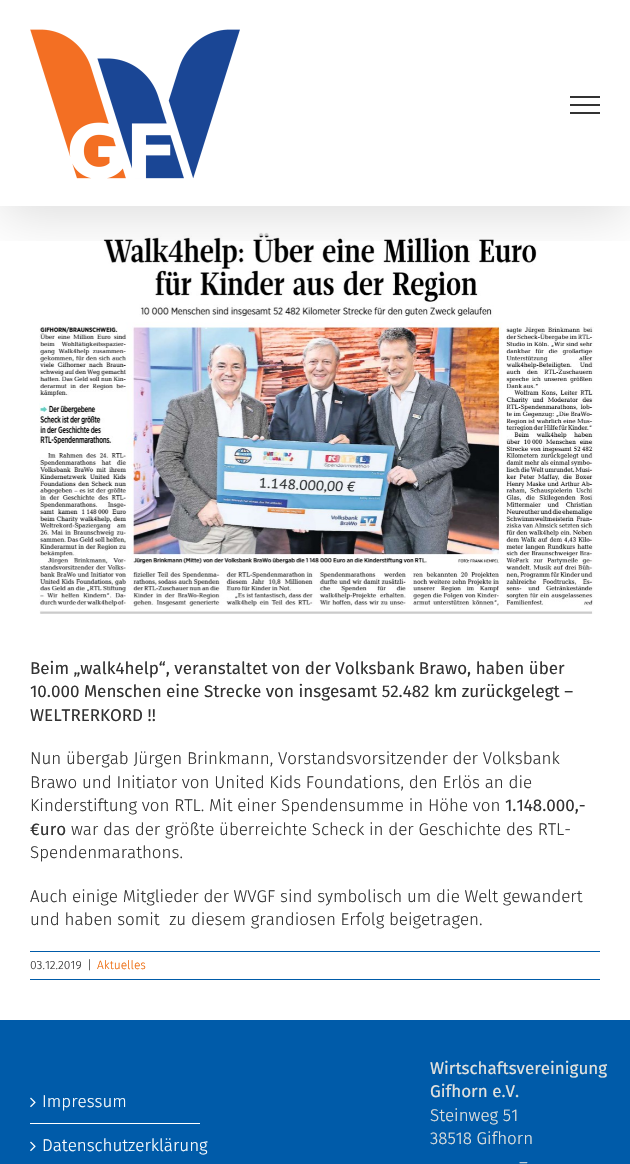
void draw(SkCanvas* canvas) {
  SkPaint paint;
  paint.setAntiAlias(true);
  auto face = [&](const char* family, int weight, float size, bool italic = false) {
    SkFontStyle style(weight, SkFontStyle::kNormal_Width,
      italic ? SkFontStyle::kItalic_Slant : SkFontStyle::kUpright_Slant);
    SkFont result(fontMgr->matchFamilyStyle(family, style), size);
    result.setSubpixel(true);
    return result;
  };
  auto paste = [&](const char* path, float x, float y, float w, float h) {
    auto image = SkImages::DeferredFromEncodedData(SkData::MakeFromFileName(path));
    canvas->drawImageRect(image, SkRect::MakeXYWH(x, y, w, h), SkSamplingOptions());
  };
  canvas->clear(0xffffffff);
  paste("img/2.png", 39, 232, 555, 382);
  canvas->save();
  canvas->clipRect(SkRect::MakeXYWH(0, 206, 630, 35));
  paint.setColor(0x24000000);
  paint.setMaskFilter(SkMaskFilter::MakeBlur(kNormal_SkBlurStyle, 25));
  canvas->drawRect(SkRect::MakeXYWH(2, 12, 626, 202), paint);
  paint.setMaskFilter(nullptr);
  canvas->restore();
  paste("img/1.png", 30, 29, 210, 150);
  {
    const struct { float x, y, w, h; SkColor color; } items[] = {
      {570, 96, 30, 2, 0xff333333},
      {570, 104, 30, 2, 0xff333333},
      {570, 112, 30, 2, 0xff333333},
      {30, 951, 570, 1, 0xff005ba9},
      {30, 979, 570, 1, 0xff005ba9},
      {0, 1020, 630, 144, 0xff005ba9},
      {30, 1123, 170, 1, 0xffffffff},
    };
    for (auto [x, y, w, h, color] : items) {
      paint.setColor(color);
      canvas->drawRect(SkRect::MakeXYWH(x, y, w, h), paint);
    }
  }
  paste("img/3.png", 30, 1097, 6, 11);
  paste("img/3.png", 30, 1141, 6, 11);
  auto f0 = face("Fira Sans", 400, 17);
  paint.setColor(0xff333333);
  {
    const struct { const char* s; float x, y; } items[] = {
      {"Beim „walk4help“, veranstaltet von der Volksbank Brawo, haben über", 30, 674},
      {"10.000 Menschen eine Strecke von insgesamt 52.482 km zurückgelegt –", 30, 697},
      {"WELTRERKORD !!", 30, 721},
    };
    for (auto [s, x, y] : items) {
      canvas->drawString(s, x, y, f0, paint);
    }
  }
  auto f1 = face("Fira Sans", 300, 17);
  {
    const struct { const char* s; float x, y; } items[] = {
      {"Nun übergab Jürgen Brinkmann, Vorstandsvorsitzender der Volksbank", 30, 764},
      {"Brawo und Initiator von United Kids Foundations, den Erlös an die", 30, 788},
      {"Kinderstiftung von RTL. Mit einer Spendensumme in Höhe von", 30, 811},
    };
    for (auto [s, x, y] : items) {
      canvas->drawString(s, x, y, f1, paint);
    }
  }
  canvas->drawString("1.148.000,-", 505, 811, f0, paint);
  canvas->drawString("€uro", 30, 835, f0, paint);
  {
    const struct { const char* s; float x, y; } items[] = {
      {"war das der größte überreichte Scheck in der Geschichte des RTL-", 71, 835},
      {"Spendenmarathons.", 30, 858},
      {"Auch einige Mitglieder der WVGF sind symbolisch um die Welt gewandert", 30, 902},
      {"und haben somit  zu diesem grandiosen Erfolg beigetragen.", 30, 925},
    };
    for (auto [s, x, y] : items) {
      canvas->drawString(s, x, y, f1, paint);
    }
  }
  auto f2 = face("Fira Sans", 300, 12);
  canvas->drawString("03.12.2019", 30, 969, f2, paint);
  canvas->drawString("|", 87, 969, f2, paint);
  paint.setColor(0xffec6504);
  canvas->drawString("Aktuelles", 97, 969, f2, paint);
  paint.setColor(0xffffffff);
  canvas->drawString("Impressum", 42, 1107, f1, paint);
  canvas->drawString("Datenschutzerklärung", 42, 1151, f1, paint);
  paint.setColor(0xffe3e2de);
  canvas->drawString("Wirtschaftsvereinigung", 430, 1074, f0, paint);
  canvas->drawString("Gifhorn e.V.", 430, 1097, f0, paint);
  {
    const struct { const char* s; float x, y; } items[] = {
      {"Steinweg 51", 430, 1121},
      {"38518 Gifhorn", 430, 1144},
      {"–", 519, 1168},
    };
    for (auto [s, x, y] : items) {
      canvas->drawString(s, x, y, f1, paint);
    }
  }
}
